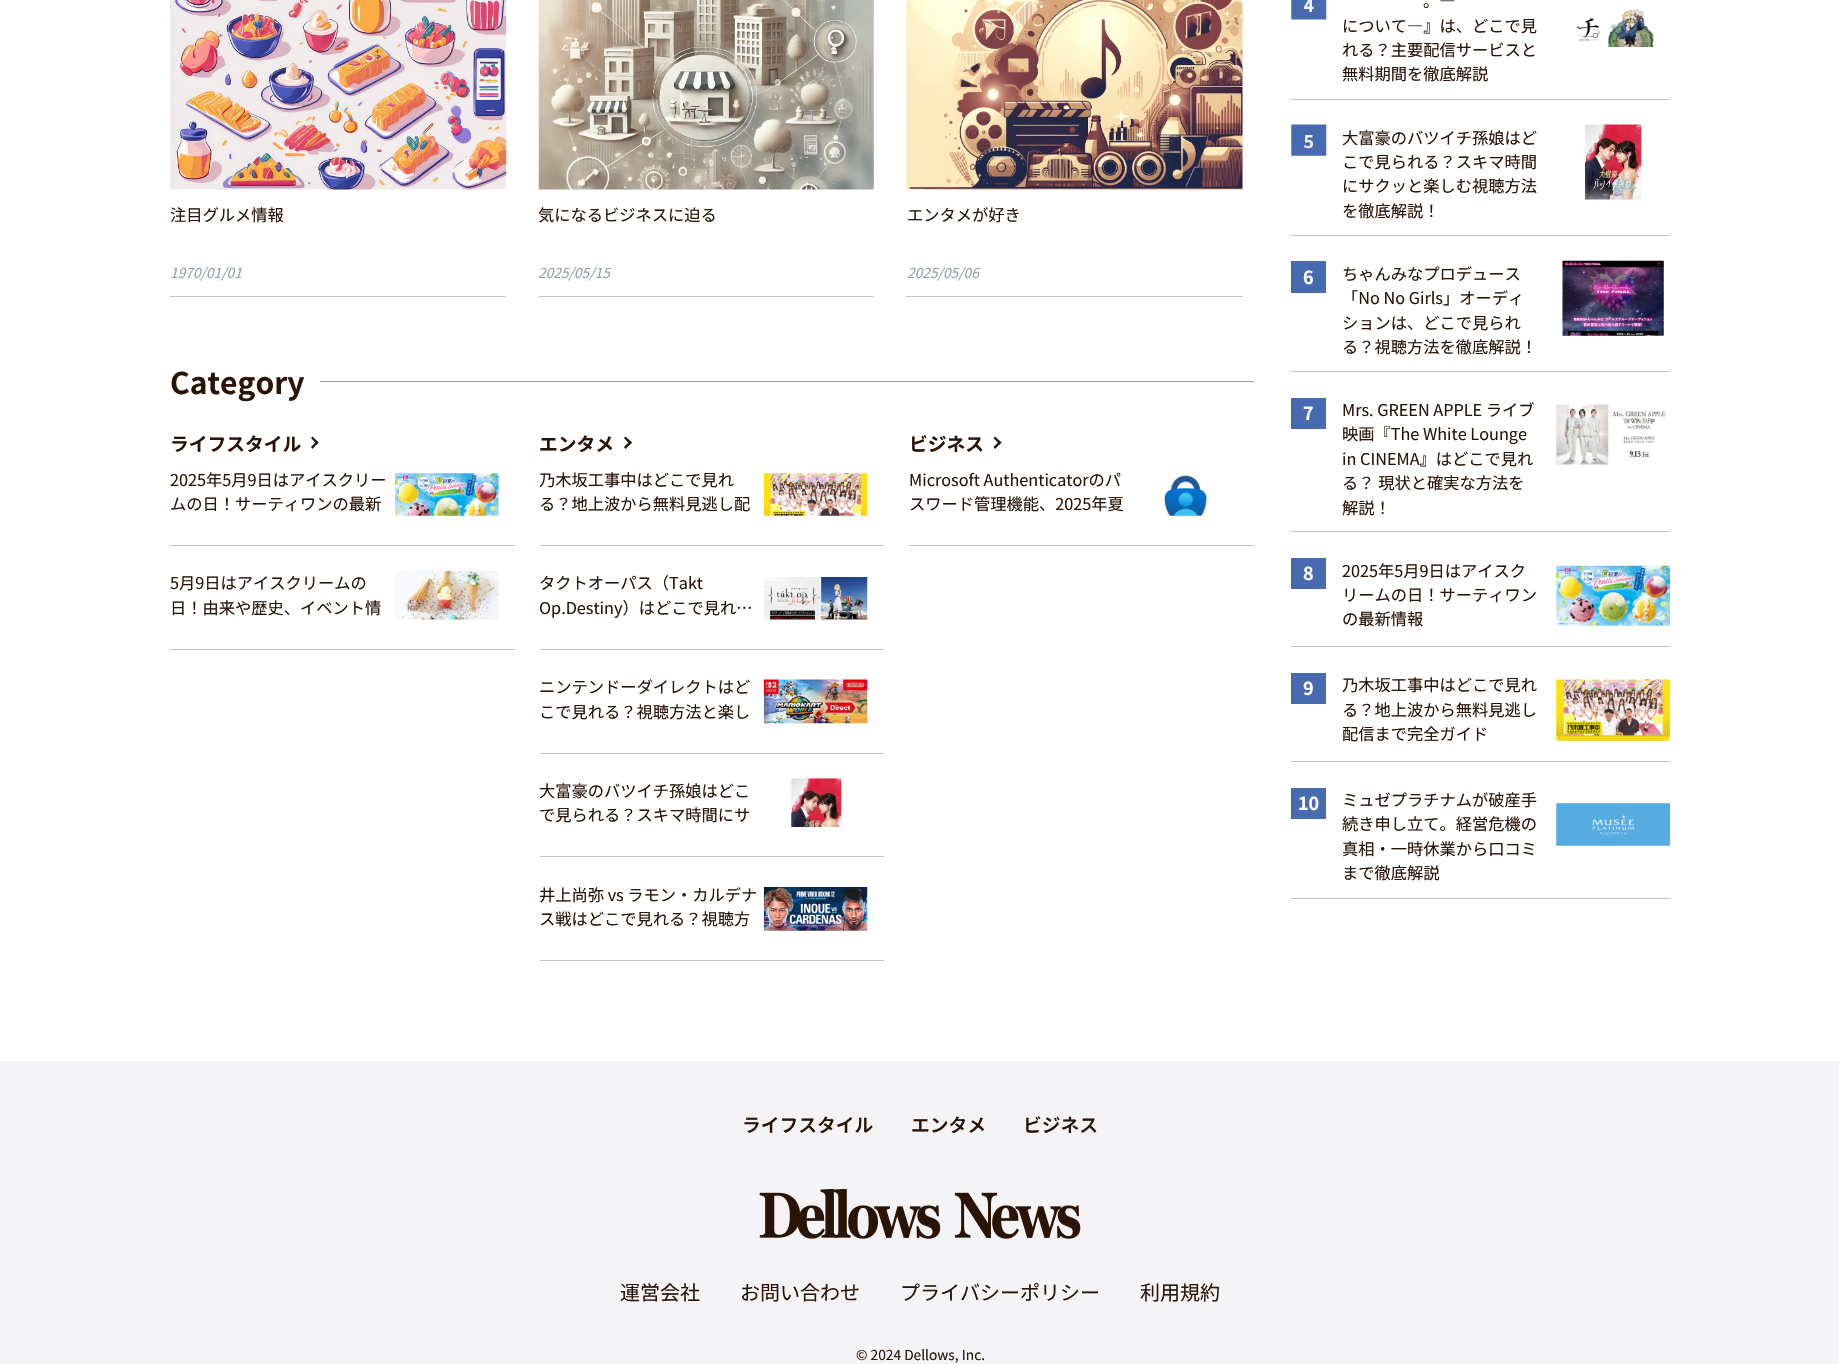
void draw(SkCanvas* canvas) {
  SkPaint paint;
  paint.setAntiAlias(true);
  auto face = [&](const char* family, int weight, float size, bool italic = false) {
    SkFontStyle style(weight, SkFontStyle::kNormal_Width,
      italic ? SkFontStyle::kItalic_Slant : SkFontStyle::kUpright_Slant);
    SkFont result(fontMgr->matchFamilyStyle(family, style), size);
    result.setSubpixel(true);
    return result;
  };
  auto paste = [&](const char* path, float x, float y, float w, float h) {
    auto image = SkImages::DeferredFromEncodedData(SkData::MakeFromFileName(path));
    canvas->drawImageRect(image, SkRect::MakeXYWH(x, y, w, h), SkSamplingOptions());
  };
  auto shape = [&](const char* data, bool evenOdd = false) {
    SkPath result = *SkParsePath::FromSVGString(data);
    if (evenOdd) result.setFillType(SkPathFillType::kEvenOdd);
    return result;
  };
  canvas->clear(0xffffffff);
  paint.setColor(0xffc0c5ce);
  canvas->drawRect(SkRect::MakeXYWH(170, 296, 336, 1), paint);
  paste("img/1.png", 170, 0, 337, 190);
  canvas->drawRect(SkRect::MakeXYWH(539, 296, 335, 1), paint);
  paste("img/2.png", 538, 0, 336, 190);
  canvas->drawRect(SkRect::MakeXYWH(906, 296, 337, 1), paint);
  paste("img/3.png", 906, 0, 337, 190);
  paint.setColor(0xff949daf);
  canvas->drawRect(SkRect::MakeXYWH(320, 381, 934, 1), paint);
  paint.setColor(0xff2a1406);
  canvas->drawPath(shape("M312.5 436.5L318.5 442.5L317 444.5L311 438Z"), paint);
  canvas->drawPath(shape("M317 441L318.5 442.5L312.5 449L311 447Z"), paint);
  paint.setColor(0xffc0c5ce);
  canvas->drawRect(SkRect::MakeXYWH(170, 545, 345, 1), paint);
  paste("img/4.png", 395, 473, 104, 43);
  canvas->drawRect(SkRect::MakeXYWH(170, 649, 345, 1), paint);
  paste("img/5.png", 395, 570, 104, 50);
  paint.setColor(0xff2a1406);
  canvas->drawPath(shape("M625.5 436.5L632 442.5L630 444.5L624 438Z"), paint);
  canvas->drawPath(shape("M630 441L632 442.5L625.5 449L624 447Z"), paint);
  paint.setColor(0xffc0c5ce);
  canvas->drawRect(SkRect::MakeXYWH(540, 545, 344, 1), paint);
  paste("img/6.png", 763, 473, 105, 43);
  canvas->drawRect(SkRect::MakeXYWH(540, 649, 344, 1), paint);
  paste("img/7.png", 764, 577, 104, 43);
  canvas->drawRect(SkRect::MakeXYWH(540, 753, 344, 1), paint);
  paste("img/8.png", 763, 679, 105, 45);
  canvas->drawRect(SkRect::MakeXYWH(540, 856, 344, 1), paint);
  paste("img/9.png", 791, 778, 51, 49);
  canvas->drawRect(SkRect::MakeXYWH(540, 960, 344, 1), paint);
  paste("img/10.png", 763, 887, 105, 44);
  paint.setColor(0xff2a1406);
  canvas->drawPath(shape("M995 436.5L1001.5 442.5L999.5 444.5L993.5 438Z"), paint);
  canvas->drawPath(shape("M999.5 441L1001.5 442.5L995 449L993.5 447Z"), paint);
  paint.setColor(0xffc0c5ce);
  canvas->drawRect(SkRect::MakeXYWH(909, 545, 345, 1), paint);
  paste("img/11.png", 1164, 475, 44, 41);
  canvas->drawRect(SkRect::MakeXYWH(1291, 99, 379, 1), paint);
  paste("img/12.png", 1291, 0, 36, 20);
  paste("img/13.png", 1576, 9, 78, 38);
  canvas->drawRect(SkRect::MakeXYWH(1291, 235, 379, 1), paint);
  paste("img/14.png", 1291, 124, 36, 32);
  paste("img/15.png", 1585, 124, 57, 76);
  canvas->drawRect(SkRect::MakeXYWH(1291, 371, 379, 1), paint);
  paint.setColor(0xff476ab1);
  canvas->drawRect(SkRect::MakeXYWH(1291, 261, 35, 32), paint);
  paste("img/16.png", 1562, 260, 102, 76);
  paint.setColor(0xffc0c5ce);
  canvas->drawRect(SkRect::MakeXYWH(1291, 531, 379, 1), paint);
  paint.setColor(0xff476ab1);
  canvas->drawRect(SkRect::MakeXYWH(1291, 398, 35, 31), paint);
  paste("img/17.png", 1556, 404, 110, 61);
  paint.setColor(0xffc0c5ce);
  canvas->drawRect(SkRect::MakeXYWH(1291, 646, 379, 1), paint);
  paint.setColor(0xff476ab1);
  canvas->drawRect(SkRect::MakeXYWH(1291, 558, 35, 31), paint);
  paste("img/18.png", 1556, 565, 114, 61);
  paint.setColor(0xffc0c5ce);
  canvas->drawRect(SkRect::MakeXYWH(1291, 761, 379, 1), paint);
  paint.setColor(0xff476ab1);
  canvas->drawRect(SkRect::MakeXYWH(1291, 673, 35, 31), paint);
  paste("img/19.png", 1556, 679, 114, 62);
  paint.setColor(0xffc0c5ce);
  canvas->drawRect(SkRect::MakeXYWH(1291, 898, 379, 1), paint);
  paint.setColor(0xff476ab1);
  canvas->drawRect(SkRect::MakeXYWH(1291, 788, 35, 31), paint);
  paste("img/20.png", 1556, 803, 114, 43);
  paint.setColor(0xfff4f4f6);
  canvas->drawRect(SkRect::MakeXYWH(0, 1061, 1839, 303), paint);
  paste("img/21.png", 759, 1189, 322, 50);
  auto f0 = face("Noto Sans JP", 400, 16.25f);
  paint.setColor(0xff2a1406);
  canvas->drawString("注目グルメ情報", 170, 221, f0, paint);
  auto f1 = face("Noto Sans JP", 400, 13.75f, true);
  paint.setColor(0xff949daf);
  canvas->drawString("1970/01/01", 170, 278, f1, paint);
  paint.setColor(0xff2a1406);
  canvas->drawString("気になるビジネスに迫る", 538, 221, f0, paint);
  paint.setColor(0xff949daf);
  canvas->drawString("2025/05/15", 538, 278, f1, paint);
  paint.setColor(0xff2a1406);
  canvas->drawString("エンタメが好き", 907, 221, f0, paint);
  paint.setColor(0xff949daf);
  canvas->drawString("2025/05/06", 907, 278, f1, paint);
  auto f2 = face("Noto Sans JP", 700, 30);
  paint.setColor(0xff2a1406);
  canvas->drawString("Category", 170, 394, f2, paint);
  auto f3 = face("Noto Sans JP", 700, 18.75f);
  canvas->drawString("ライフスタイル", 170, 451, f3, paint);
  {
    const struct { const char* s; float x, y; } items[] = {
      {"2025年5月9日はアイスクリー", 170, 486},
      {"ムの日！サーティワンの最新", 170, 510},
      {"5月9日はアイスクリームの", 170, 589},
      {"日！由来や歴史、イベント情", 170, 614},
    };
    for (auto [s, x, y] : items) {
      canvas->drawString(s, x, y, f0, paint);
    }
  }
  canvas->drawString("エンタメ", 539, 451, f3, paint);
  {
    const struct { const char* s; float x, y; } items[] = {
      {"乃木坂工事中はどこで見れ", 539, 486},
      {"る？地上波から無料見逃し配", 539, 510},
      {"タクトオーパス（Takt", 539, 589},
      {"Op.Destiny）はどこで見れ…", 539, 614},
      {"ニンテンドーダイレクトはど", 539, 693},
      {"こで見れる？視聴方法と楽し", 539, 718},
      {"大富豪のバツイチ孫娘はどこ", 539, 797},
      {"で見られる？スキマ時間にサ", 539, 821},
      {"井上尚弥 vs ラモン・カルデナ", 539, 901},
      {"ス戦はどこで見れる？視聴方", 539, 925},
    };
    for (auto [s, x, y] : items) {
      canvas->drawString(s, x, y, f0, paint);
    }
  }
  canvas->drawString("ビジネス", 909, 451, f3, paint);
  {
    const struct { const char* s; float x, y; } items[] = {
      {"Microsoft Authenticatorのパ", 909, 486},
      {"スワード管理機能、2025年夏", 909, 510},
      {"。―", 1423, 7},
      {"について―』は、どこで見", 1342, 32},
      {"れる？主要配信サービスと", 1342, 56},
      {"無料期間を徹底解説", 1342, 80},
      {"大富豪のバツイチ孫娘はど", 1342, 144},
      {"こで見られる？スキマ時間", 1342, 168},
      {"にサクッと楽しむ視聴方法", 1342, 192},
      {"を徹底解説！", 1342, 217},
    };
    for (auto [s, x, y] : items) {
      canvas->drawString(s, x, y, f0, paint);
    }
  }
  auto f4 = face("Noto Sans JP", 700, 18);
  paint.setColor(0xffffffff);
  canvas->drawString("6", 1303, 284, f4, paint);
  paint.setColor(0xff2a1406);
  {
    const struct { const char* s; float x, y; } items[] = {
      {"ちゃんみなプロデュース", 1342, 280},
      {"「No No Girls」オーディ", 1342, 304},
      {"ションは、どこで見られ", 1342, 329},
      {"る？視聴方法を徹底解説！", 1342, 353},
    };
    for (auto [s, x, y] : items) {
      canvas->drawString(s, x, y, f0, paint);
    }
  }
  paint.setColor(0xffffffff);
  canvas->drawString("7", 1303, 420, f4, paint);
  paint.setColor(0xff2a1406);
  {
    const struct { const char* s; float x, y; } items[] = {
      {"Mrs. GREEN APPLE ライブ", 1342, 416},
      {"映画『The White Lounge", 1342, 440},
      {"in CINEMA』はどこで見れ", 1342, 465},
      {"る？ 現状と確実な方法を", 1342, 489},
      {"解説！", 1342, 514},
    };
    for (auto [s, x, y] : items) {
      canvas->drawString(s, x, y, f0, paint);
    }
  }
  paint.setColor(0xffffffff);
  canvas->drawString("8", 1303, 580, f4, paint);
  paint.setColor(0xff2a1406);
  {
    const struct { const char* s; float x, y; } items[] = {
      {"2025年5月9日はアイスク", 1342, 577},
      {"リームの日！サーティワン", 1342, 601},
      {"の最新情報", 1342, 625},
    };
    for (auto [s, x, y] : items) {
      canvas->drawString(s, x, y, f0, paint);
    }
  }
  paint.setColor(0xffffffff);
  canvas->drawString("9", 1303, 695, f4, paint);
  paint.setColor(0xff2a1406);
  {
    const struct { const char* s; float x, y; } items[] = {
      {"乃木坂工事中はどこで見れ", 1342, 691},
      {"る？地上波から無料見逃し", 1342, 716},
      {"配信まで完全ガイド", 1342, 740},
    };
    for (auto [s, x, y] : items) {
      canvas->drawString(s, x, y, f0, paint);
    }
  }
  paint.setColor(0xffffffff);
  canvas->drawString("10", 1298, 810, f4, paint);
  paint.setColor(0xff2a1406);
  {
    const struct { const char* s; float x, y; } items[] = {
      {"ミュゼプラチナムが破産手", 1342, 806},
      {"続き申し立て。経営危機の", 1342, 830},
      {"真相・一時休業から口コミ", 1342, 855},
      {"まで徹底解説", 1342, 879},
    };
    for (auto [s, x, y] : items) {
      canvas->drawString(s, x, y, f0, paint);
    }
  }
  auto f5 = face("Noto Sans JP", 600, 18.75f);
  {
    const struct { const char* s; float x, y; } items[] = {
      {"ライフスタイル", 742, 1132},
      {"エンタメ", 911, 1132},
      {"ビジネス", 1023, 1132},
    };
    for (auto [s, x, y] : items) {
      canvas->drawString(s, x, y, f5, paint);
    }
  }
  auto f6 = face("Noto Sans JP", 400, 20);
  {
    const struct { const char* s; float x, y; } items[] = {
      {"運営会社", 620, 1300},
      {"お問い合わせ", 740, 1300},
      {"プライバシーポリシー", 900, 1300},
      {"利用規約", 1140, 1300},
    };
    for (auto [s, x, y] : items) {
      canvas->drawString(s, x, y, f6, paint);
    }
  }
  auto f7 = face("Noto Sans JP", 400, 13.75f);
  canvas->drawString("© 2024 Dellows, Inc.", 856, 1360, f7, paint);
}
